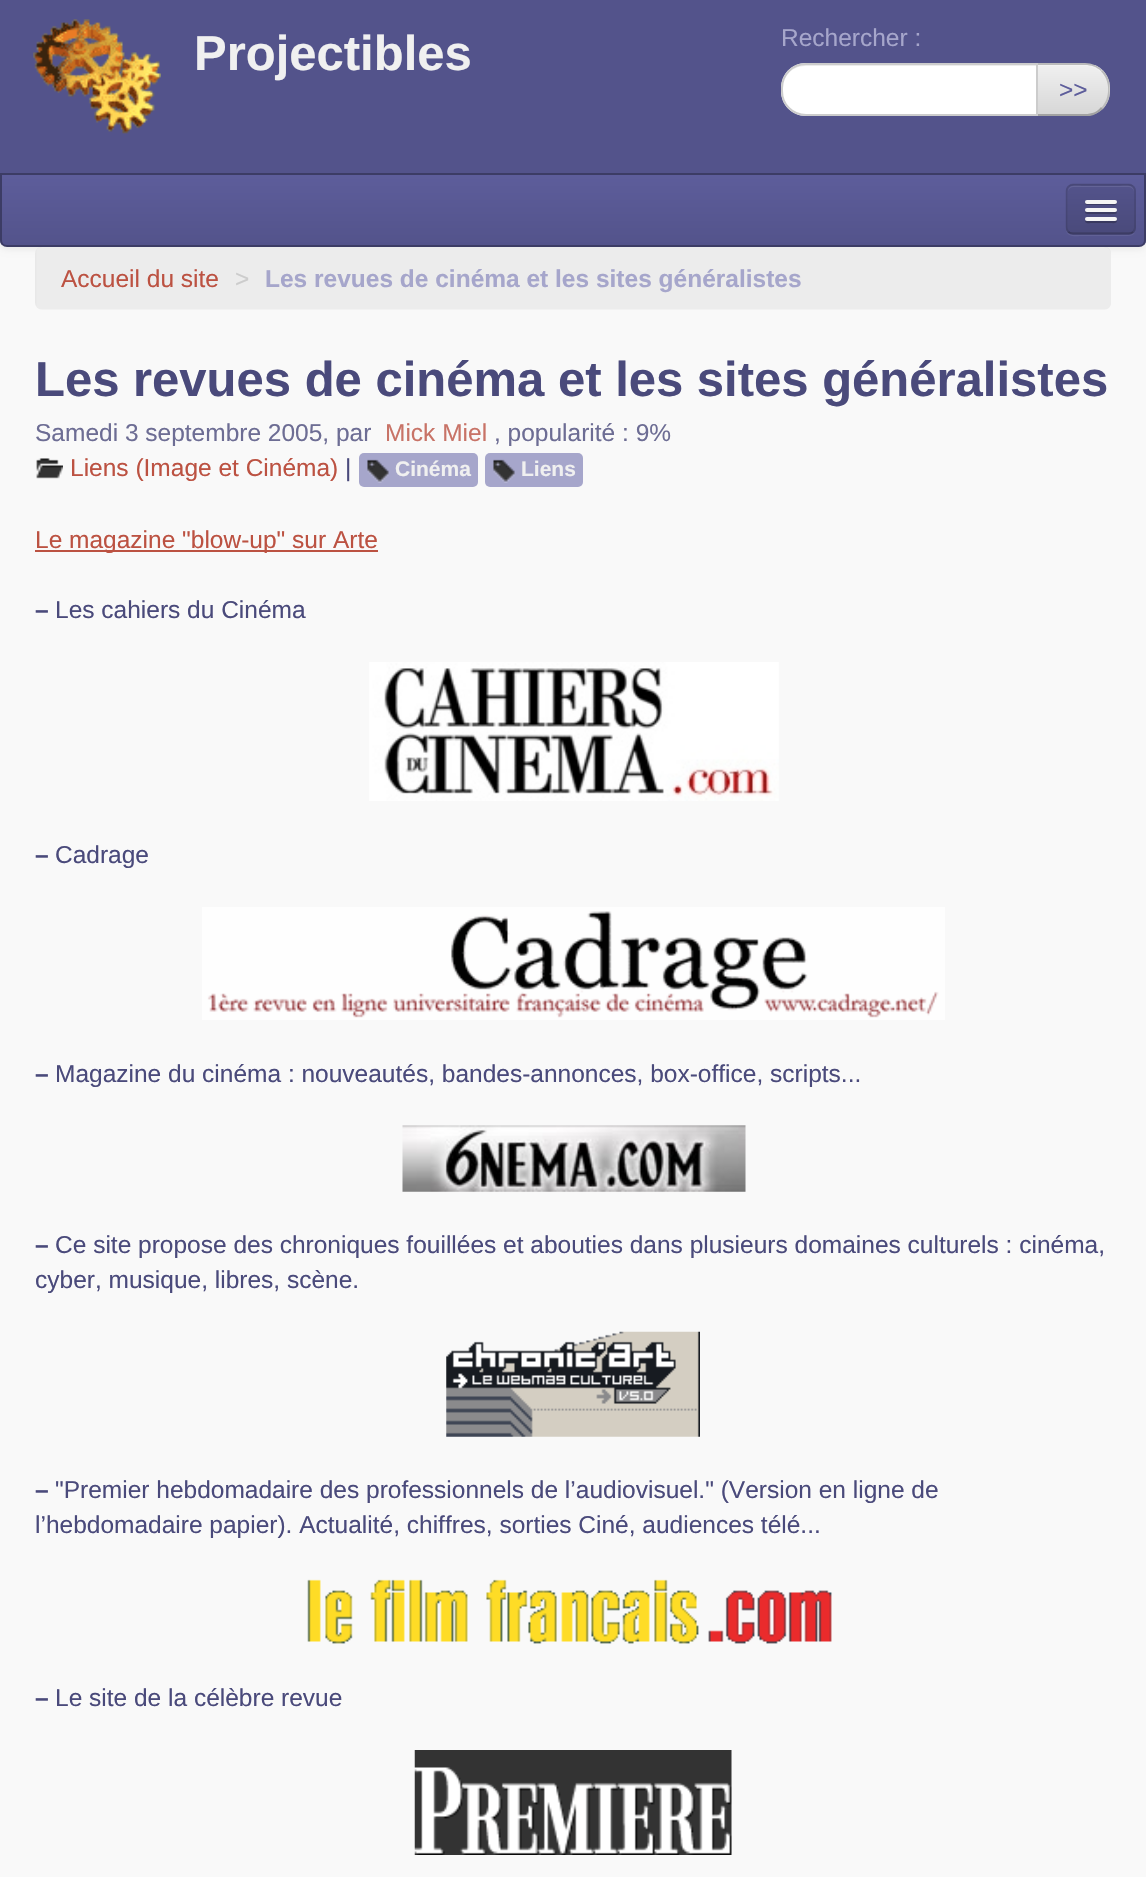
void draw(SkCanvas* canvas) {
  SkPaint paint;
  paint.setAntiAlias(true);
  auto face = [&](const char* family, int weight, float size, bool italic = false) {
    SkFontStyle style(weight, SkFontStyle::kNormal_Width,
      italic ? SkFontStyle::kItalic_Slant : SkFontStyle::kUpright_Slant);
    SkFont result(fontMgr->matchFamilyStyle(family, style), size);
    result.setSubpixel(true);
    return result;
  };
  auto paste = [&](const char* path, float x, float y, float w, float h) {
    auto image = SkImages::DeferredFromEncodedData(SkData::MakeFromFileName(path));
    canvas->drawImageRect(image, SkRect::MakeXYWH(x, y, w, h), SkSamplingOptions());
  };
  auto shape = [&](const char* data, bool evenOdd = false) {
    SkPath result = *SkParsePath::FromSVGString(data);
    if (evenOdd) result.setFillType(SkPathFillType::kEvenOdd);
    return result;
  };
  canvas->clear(0xfff9f9f9);
  paint.setColor(0x12000000);
  paint.setMaskFilter(SkMaskFilter::MakeBlur(kNormal_SkBlurStyle, 3.5f));
  canvas->drawRoundRect(SkRect::MakeXYWH(0, 175, 1146, 74), 7, 7, paint);
  paint.setMaskFilter(nullptr);
  paint.setColor(0xff53538b);
  canvas->drawRect(SkRect::MakeXYWH(0, 0, 1146, 173), paint);
  paste("img/1.png", 33, 19, 128, 115);
  canvas->save();
  canvas->clipPath(shape("M1036 63H1085C1099 63 1110 74 1110 88V91C1110 105 1099 116 1085 116H1036Z"), true);
  {
    const SkColor colors[] = {0xfff0f0f0, 0xffd7d7d7};
    const float stops[] = {0, 1};
    const SkPoint ends[] = {{1073, 65}, {1073, 114}};
    paint.setShader(SkGradientShader::MakeLinear(ends, colors, stops, 2, SkTileMode::kClamp));
    paint.setAlpha(255);
  }
  canvas->drawRect(SkRect::MakeXYWH(1038, 65, 72, 49), paint);
  canvas->restore();
  paint.setShader(nullptr);
  paint.setColor(0x33ffffff);
  canvas->drawPath(shape("M1038 66H1085C1098 66 1108 77 1108 89V88C1108 75 1098 65 1085 65H1038Z"), paint);
  paint.setColor(0xffbbbbbb);
  canvas->drawPath(shape("M1036 63L1038 65H1085C1091 65 1097 67 1101 71L1102 70C1098 66 1092 63 1085 63Z"), paint);
  canvas->drawPath(shape("M1109.5 96C1108.5 101 1106 105.5 1103 109L1101.5 107.5C1110.5 98 1110.5 80.5 1101 71.5L1102.5 70C1106 73.5 1108.5 78 1109.5 83Z"), paint);
  paint.setColor(0xffa2a2a2);
  canvas->drawPath(shape("M1090 116H1036L1038 114H1085C1092 114 1097 112 1101 107L1103 109C1099 112 1095 115 1090 116Z"), paint);
  paint.setColor(0xffffffff);
  canvas->drawPath(shape("M806 63H1038V116H806C792 116 781 105 781 91V88C781 74 792 63 806 63Z"), paint);
  paint.setColor(0xffececec);
  canvas->drawPath(shape("M805 66H1036V65H805C792 65 782 75 782 88V89C782 77 792 66 805 66Z"), paint);
  paint.setStroke(true);
  paint.setStrokeWidth(2);
  paint.setColor(0xffcccccc);
  canvas->drawPath(shape("M806 64H1037V115H806C792.5 115 782 104.5 782 91V88C782 74.5 792.5 64 806 64Z"), paint);
  canvas->save();
  canvas->clipPath(shape("M0 173H1146V240C1146 244 1143 247 1139 247H7C3 247 0 244 0 240Z"), true);
  paint.setStroke(false);
  {
    const SkColor colors[] = {0xff5d5d9b, 0xff53538b};
    const float stops[] = {0, 1};
    const SkPoint ends[] = {{573, 175}, {573, 245}};
    paint.setShader(SkGradientShader::MakeLinear(ends, colors, stops, 2, SkTileMode::kClamp));
    paint.setAlpha(255);
  }
  canvas->drawRect(SkRect::MakeXYWH(0, 175, 1146, 70), paint);
  canvas->restore();
  paint.setStroke(true);
  paint.setShader(nullptr);
  paint.setColor(0xff3c3c65);
  canvas->drawPath(shape("M1 174H1145V240C1145 243.5 1142.5 246 1139 246H7C3.5 246 1 243.5 1 240Z"), paint);
  paint.setStroke(false);
  paint.setColor(0xff616196);
  canvas->drawPath(shape("M1066 229C1066 238 1077 236 1082 236H1110C1139 236 1136 239 1136 211V191V228C1136 231 1133 234 1129 234H1073C1070 234 1067 232 1066 229Z"), paint);
  paint.setColor(0xff505085);
  canvas->drawRoundRect(SkRect::MakeXYWH(1066, 184, 70, 51), 7, 7, paint);
  canvas->save();
  canvas->clipPath(shape("M1073 184H1129C1133 184 1136 187 1136 191V228C1136 232 1133 235 1129 235H1073C1069 235 1066 232 1066 228V191C1066 187 1069 184 1073 184Z"), true);
  {
    const SkColor colors[] = {0xff53538b, 0xff4a4a7b};
    const float stops[] = {0, 1};
    const SkPoint ends[] = {{1101, 186}, {1101, 233}};
    paint.setShader(SkGradientShader::MakeLinear(ends, colors, stops, 2, SkTileMode::kClamp));
    paint.setAlpha(255);
  }
  canvas->drawRect(SkRect::MakeXYWH(1066, 186, 70, 47), paint);
  canvas->restore();
  paint.setShader(nullptr);
  paint.setColor(0xff646497);
  canvas->drawPath(shape("M1073 187H1129C1132 187 1134 190 1134 192C1134 184 1126 186 1120 186H1082C1076 186 1068 184 1068 192C1068 190 1070 187 1073 187Z"), paint);
  paint.setStroke(true);
  paint.setStrokeWidth(1.8f);
  paint.setColor(0x40000000);
  canvas->drawPath(shape("M1133 232C1132 233 1130.5 233.5 1129 233.5H1073C1071 233.5 1069.5 233 1068.5 232"), paint);
  paint.setColor(0x1a000000);
  canvas->drawPath(shape("M1068.5 232C1067.5 230.5 1066.5 229 1066.5 227.5V191C1066.5 189 1067.5 187.5 1068.5 186.5C1069.5 185.5 1071 184.5 1073 184.5H1129C1130.5 184.5 1132 185.5 1133 186.5C1134 187.5 1135 189 1135 191V227.5C1135 229 1134 230.5 1133 232"), paint);
  paint.setStroke(false);
  paint.setColor(0xff3c3c64);
  canvas->drawPath(shape("M1085 202C1083.5 206 1091 205 1091.5 205H1110.5C1111.5 205 1116.5 206 1117 203.5C1117 203 1117 202 1116.5 201.5C1116.5 202.5 1115.5 203 1115 203H1087C1086 203 1085.5 202.5 1085 202Z"), paint);
  paint.setColor(0xfff5f5f5);
  canvas->drawRoundRect(SkRect::MakeXYWH(1085, 200, 32, 4), 2, 2, paint);
  paint.setColor(0xff3b3b62);
  canvas->drawPath(shape("M1085.5 211C1083 215 1091 214 1091.5 214H1101C1103.5 214 1115 214.5 1116.5 213.5C1117 212.5 1117 211.5 1116.5 210.5L1115.5 211.5H1086.5Z"), paint);
  paint.setColor(0xfff5f5f5);
  canvas->drawRoundRect(SkRect::MakeXYWH(1085, 208, 32, 4), 2, 2, paint);
  paint.setColor(0xff39395f);
  canvas->drawPath(shape("M1085.5 220L1085 221.5C1085.5 224 1090.5 223 1091.5 223H1110.5C1112 223 1117 224 1117 221L1116.5 219.5C1116 220 1115.5 220.5 1115 220.5H1086.5Z"), paint);
  paint.setColor(0xfff5f5f5);
  canvas->drawRoundRect(SkRect::MakeXYWH(1085, 217, 32, 4), 2, 2, paint);
  paint.setColor(0xfff9f9f9);
  canvas->drawRoundRect(SkRect::MakeXYWH(35, 247, 1076, 63), 7, 7, paint);
  paste("img/2.png", 35, 247, 1076, 63);
  paste("img/3.png", 36, 458, 27, 21);
  paint.setColor(0xffa6a6cb);
  canvas->drawRoundRect(SkRect::MakeXYWH(359, 453, 119, 34), 5, 5, paint);
  paste("img/4.png", 367, 459, 22, 24);
  canvas->drawRoundRect(SkRect::MakeXYWH(485, 453, 98, 34), 5, 5, paint);
  paste("img/4.png", 493, 459, 22, 24);
  paint.setColor(0xffbc5242);
  canvas->drawRect(SkRect::MakeXYWH(35, 550, 343, 2), paint);
  paste("img/5.png", 369, 662, 410, 139);
  paste("img/6.png", 202, 907, 743, 113);
  paste("img/7.png", 402, 1125, 344, 67);
  paste("img/8.png", 446, 1331, 254, 106);
  paste("img/9.png", 307, 1579, 525, 65);
  paste("img/10.png", 414, 1750, 318, 105);
  auto f0 = face("Liberation Sans", 700, 49);
  paint.setColor(0xfff0f0f0);
  canvas->drawString("Projectibles", 194, 70, f0, paint);
  auto f1 = face("Liberation Sans", 400, 24.5f);
  paint.setColor(0xffa6a6cb);
  canvas->drawString("Rechercher :", 781, 46, f1, paint);
  paint.setColor(0xff5d5d9b);
  canvas->drawString(">>", 1059, 98, f1, paint);
  paint.setColor(0xffbc5242);
  canvas->drawString("Accueil du site", 61, 287, f1, paint);
  paint.setColor(0xffcccccc);
  canvas->drawString(">", 235, 287, f1, paint);
  auto f2 = face("Liberation Sans", 700, 24.5f);
  paint.setColor(0xffa6a6cb);
  canvas->drawString("Les revues de cinéma et les sites généralistes", 265, 287, f2, paint);
  paint.setColor(0xff4a4a7b);
  canvas->drawString("Les revues de cinéma et les sites généralistes", 35, 396, f0, paint);
  paint.setColor(0xff6d6d94);
  canvas->drawString("Samedi 3 septembre 2005, par", 35, 441, f1, paint);
  paint.setColor(0xffc87367);
  canvas->drawString("Mick Miel", 385, 441, f1, paint);
  paint.setColor(0xff6d6d94);
  canvas->drawString(", popularité : 9%", 494, 441, f1, paint);
  paint.setColor(0xffbc5242);
  canvas->drawString("Liens (Image et Cinéma)", 70, 476, f1, paint);
  paint.setColor(0xff4a4a7b);
  canvas->drawString("|", 345, 476, f1, paint);
  auto f3 = face("Liberation Sans", 700, 21);
  paint.setColor(0xfff0f0f0);
  canvas->drawString("Cinéma", 395, 476, f3, paint);
  canvas->drawString("Liens", 521, 476, f3, paint);
  paint.setColor(0xffbc5242);
  canvas->drawString("Le magazine \"blow-up\" sur Arte", 35, 548, f1, paint);
  paint.setColor(0xff4a4a7b);
  canvas->drawString("–", 35, 618, f2, paint);
  canvas->drawString("Les cahiers du Cinéma", 55, 618, f1, paint);
  canvas->drawString("–", 35, 863, f2, paint);
  canvas->drawString("Cadrage", 55, 863, f1, paint);
  canvas->drawString("–", 35, 1082, f2, paint);
  canvas->drawString("Magazine du cinéma : nouveautés, bandes-annonces, box-office, scripts...", 55, 1082, f1, paint);
  canvas->drawString("–", 35, 1253, f2, paint);
  canvas->drawString("Ce site propose des chroniques fouillées et abouties dans plusieurs domaines culturels : cinéma,", 55, 1253, f1, paint);
  canvas->drawString("cyber, musique, libres, scène.", 35, 1288, f1, paint);
  canvas->drawString("–", 35, 1498, f2, paint);
  canvas->drawString("\"Premier hebdomadaire des professionnels de l’audiovisuel.\" (Version en ligne de", 55, 1498, f1, paint);
  canvas->drawString("l’hebdomadaire papier). Actualité, chiffres, sorties Ciné, audiences télé...", 35, 1533, f1, paint);
  canvas->drawString("–", 35, 1706, f2, paint);
  canvas->drawString("Le site de la célèbre revue", 55, 1706, f1, paint);
}
